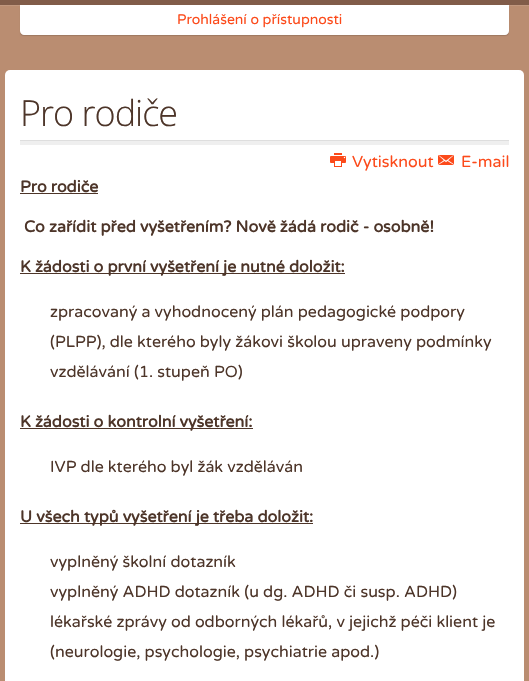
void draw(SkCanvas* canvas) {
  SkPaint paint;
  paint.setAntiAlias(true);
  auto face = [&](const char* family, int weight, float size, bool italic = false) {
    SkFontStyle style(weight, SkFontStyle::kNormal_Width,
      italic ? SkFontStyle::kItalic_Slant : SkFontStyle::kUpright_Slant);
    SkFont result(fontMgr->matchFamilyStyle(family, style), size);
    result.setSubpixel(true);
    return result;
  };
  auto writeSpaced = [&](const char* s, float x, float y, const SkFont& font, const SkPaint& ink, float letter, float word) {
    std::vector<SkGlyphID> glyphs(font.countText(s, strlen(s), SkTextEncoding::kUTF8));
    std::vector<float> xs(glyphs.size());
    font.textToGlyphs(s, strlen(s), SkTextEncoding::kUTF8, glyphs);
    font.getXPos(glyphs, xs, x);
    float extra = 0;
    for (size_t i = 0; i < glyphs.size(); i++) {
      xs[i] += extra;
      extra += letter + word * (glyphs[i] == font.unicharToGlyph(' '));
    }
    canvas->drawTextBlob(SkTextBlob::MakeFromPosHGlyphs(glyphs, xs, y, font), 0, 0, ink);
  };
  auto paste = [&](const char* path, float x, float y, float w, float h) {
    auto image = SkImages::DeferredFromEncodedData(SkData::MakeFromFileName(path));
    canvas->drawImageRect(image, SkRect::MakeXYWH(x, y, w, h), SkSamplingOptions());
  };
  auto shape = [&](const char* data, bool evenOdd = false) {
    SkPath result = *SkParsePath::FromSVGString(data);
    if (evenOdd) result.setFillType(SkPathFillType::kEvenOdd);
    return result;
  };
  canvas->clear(0xffba8d71);
  paint.setColor(0xffc1987f);
  canvas->drawRect(SkRect::MakeXYWH(0, 5, 529, 1), paint);
  paint.setColor(0xff815c49);
  canvas->drawRect(SkRect::MakeXYWH(0, 0, 529, 5), paint);
  paint.setColor(0x26000000);
  paint.setMaskFilter(SkMaskFilter::MakeBlur(kNormal_SkBlurStyle, 0.5f));
  canvas->drawRoundRect(SkRect::MakeXYWH(20, 6, 489, 30), 4, 4, paint);
  paint.setMaskFilter(nullptr);
  paint.setColor(0xffffffff);
  canvas->drawPath(shape("M20 5H509V31C509 33 507 35 505 35H24C22 35 20 33 20 31Z"), paint);
  canvas->drawRoundRect(SkRect::MakeXYWH(5, 70, 519, 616), 5, 5, paint);
  paint.setColor(0xffdedede);
  canvas->drawRect(SkRect::MakeXYWH(20, 140, 489, 1), paint);
  paint.setColor(0xffefefef);
  canvas->drawRect(SkRect::MakeXYWH(20, 141, 489, 4), paint);
  paste("img/1.png", 330, 153, 16, 14);
  paste("img/2.png", 438, 155, 16, 10);
  {
    const struct { float x, y, w, h; SkColor color; } items[] = {
      {20, 193, 78, 1, 0xff4d3529},
      {20, 273, 325, 1, 0xff4d3529},
      {20, 428, 233, 1, 0xff4d3529},
      {20, 523, 293, 1, 0xff4d3529},
    };
    for (auto [x, y, w, h, color] : items) {
      paint.setColor(color);
      canvas->drawRect(SkRect::MakeXYWH(x, y, w, h), paint);
    }
  }
  auto f0 = face("Varela Round", 400, 14);
  paint.setColor(0xfffc4a1a);
  canvas->drawString("Prohlášení o přístupnosti", 177, 24, f0, paint);
  auto f1 = face("Open Sans", 300, 36);
  paint.setColor(0xff4d3529);
  writeSpaced("Pro rodiče", 20, 126, f1, paint, -1, 0);
  auto f2 = face("Varela Round", 400, 16);
  paint.setColor(0xfffc4a1a);
  canvas->drawString("Vytisknout", 352, 167, f2, paint);
  canvas->drawString("E-mail", 461, 167, f2, paint);
  auto f3 = face("Varela Round", 700, 16);
  paint.setColor(0xff4d3529);
  {
    const struct { const char* s; float x, y; } items[] = {
      {"Pro rodiče", 20, 192},
      {"Co zařídit před vyšetřením? Nově žádá rodič - osobně!", 24, 232},
      {"K žádosti o první vyšetření je nutné doložit:", 20, 272},
    };
    for (auto [s, x, y] : items) {
      canvas->drawString(s, x, y, f3, paint);
    }
  }
  {
    const struct { const char* s; float x, y; } items[] = {
      {"zpracovaný a vyhodnocený plán pedagogické podpory", 50, 317},
      {"(PLPP), dle kterého byly žákovi školou upraveny podmínky", 50, 347},
      {"vzdělávání (1. stupeň PO)", 50, 377},
    };
    for (auto [s, x, y] : items) {
      canvas->drawString(s, x, y, f2, paint);
    }
  }
  canvas->drawString("K žádosti o kontrolní vyšetření:", 20, 427, f3, paint);
  canvas->drawString("IVP dle kterého byl žák vzděláván", 50, 472, f2, paint);
  canvas->drawString("U všech typů vyšetření je třeba doložit:", 20, 522, f3, paint);
  {
    const struct { const char* s; float x, y; } items[] = {
      {"vyplněný školní dotazník", 50, 567},
      {"vyplněný ADHD dotazník (u dg. ADHD či susp. ADHD)", 50, 597},
      {"lékařské zprávy od odborných lékařů, v jejichž péči klient je", 50, 627},
      {"(neurologie, psychologie, psychiatrie apod.)", 50, 657},
    };
    for (auto [s, x, y] : items) {
      canvas->drawString(s, x, y, f2, paint);
    }
  }
}
